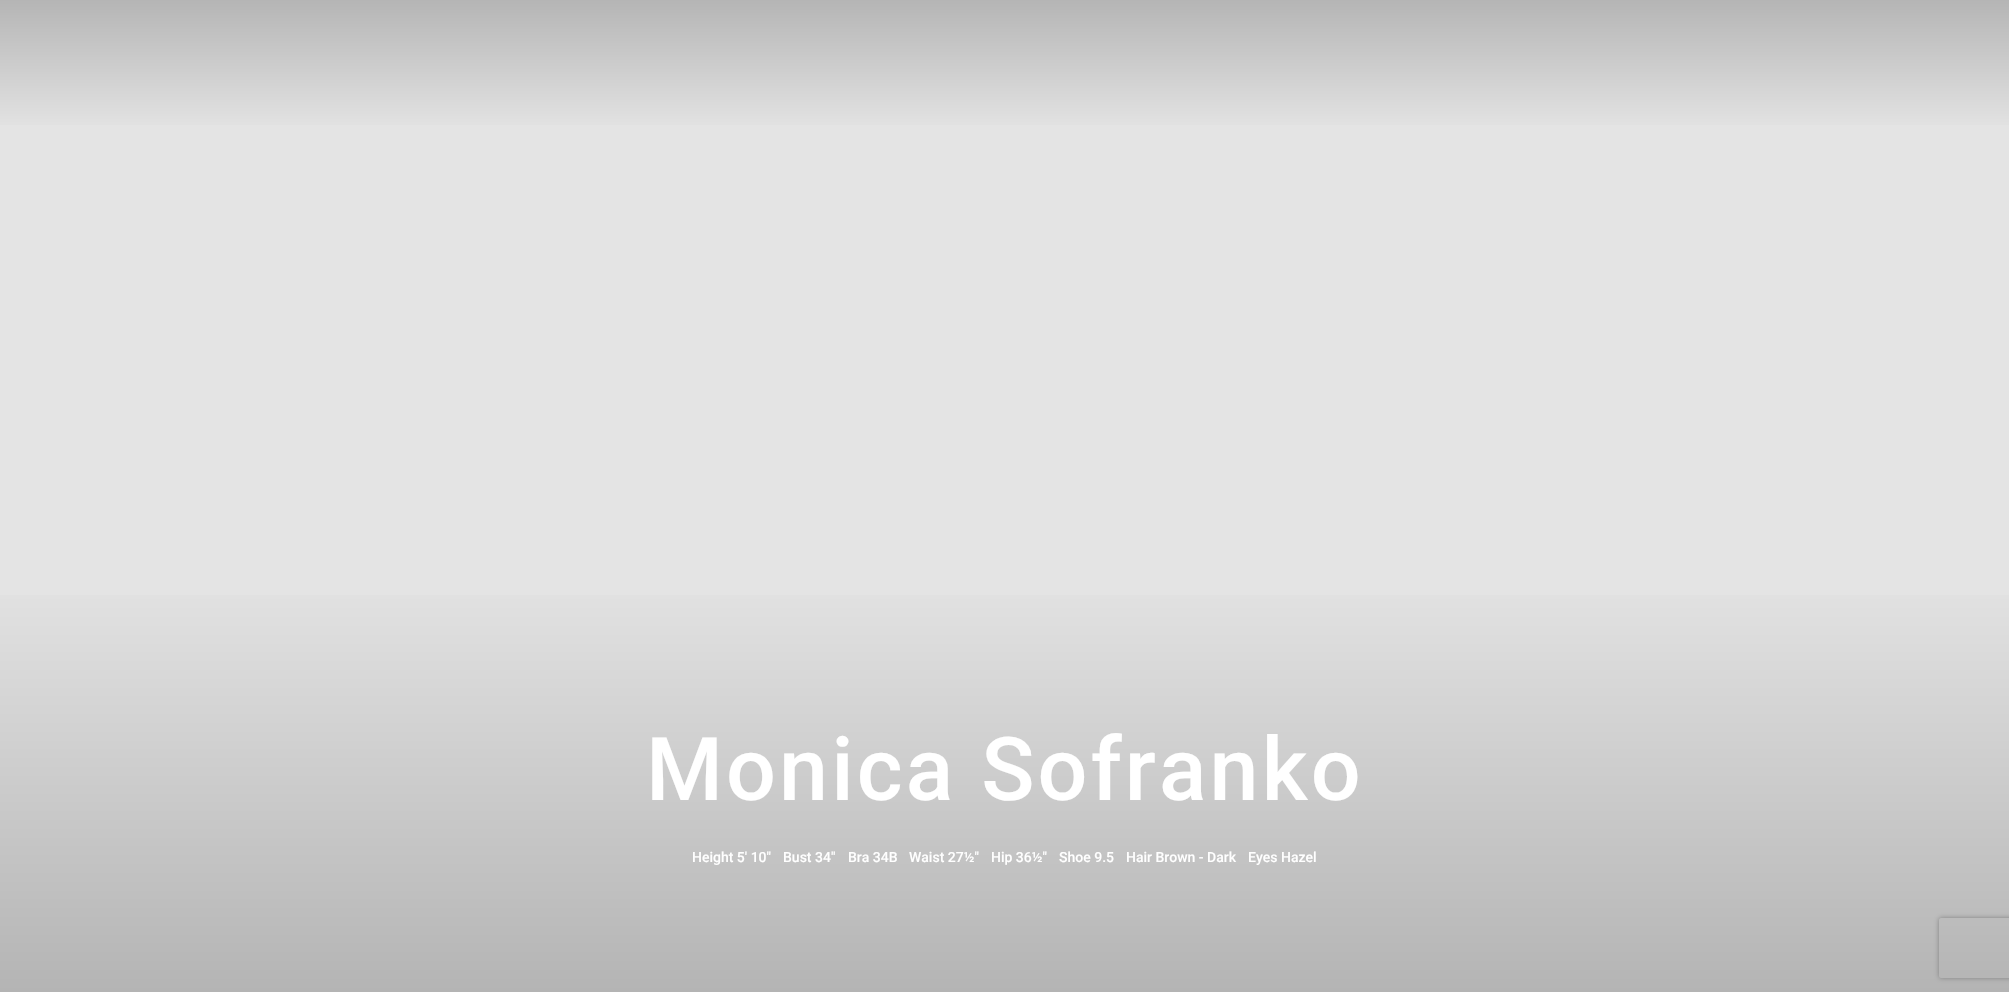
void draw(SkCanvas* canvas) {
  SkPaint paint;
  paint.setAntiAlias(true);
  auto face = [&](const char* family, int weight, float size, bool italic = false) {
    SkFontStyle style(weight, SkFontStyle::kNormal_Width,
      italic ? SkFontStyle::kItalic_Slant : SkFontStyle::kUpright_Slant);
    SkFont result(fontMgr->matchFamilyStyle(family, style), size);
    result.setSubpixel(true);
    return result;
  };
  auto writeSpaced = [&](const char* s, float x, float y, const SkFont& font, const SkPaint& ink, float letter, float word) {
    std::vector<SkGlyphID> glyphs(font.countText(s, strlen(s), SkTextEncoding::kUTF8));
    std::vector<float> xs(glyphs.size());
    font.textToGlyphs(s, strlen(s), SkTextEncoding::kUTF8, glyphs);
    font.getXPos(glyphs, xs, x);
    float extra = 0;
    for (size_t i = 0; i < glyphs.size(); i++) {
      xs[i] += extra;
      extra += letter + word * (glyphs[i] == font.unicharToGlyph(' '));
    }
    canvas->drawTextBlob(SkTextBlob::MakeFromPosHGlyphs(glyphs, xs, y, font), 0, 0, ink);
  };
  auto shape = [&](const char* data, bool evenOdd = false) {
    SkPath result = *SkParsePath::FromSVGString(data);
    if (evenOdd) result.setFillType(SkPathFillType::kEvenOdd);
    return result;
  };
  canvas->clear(0xffe4e4e4);
  {
    const SkColor colors[] = {0xffb5b5b5, 0xffe3e3e3};
    const float stops[] = {0, 0.6f};
    const SkPoint ends[] = {{1005, 0}, {1005, 215}};
    paint.setShader(SkGradientShader::MakeLinear(ends, colors, stops, 2, SkTileMode::kClamp));
    paint.setAlpha(255);
  }
  canvas->drawRect(SkRect::MakeXYWH(0, 0, 2009, 125), paint);
  {
    const SkColor colors[] = {0xffb4b4b4, 0xffe1e1e1};
    const float stops[] = {0, 1};
    const SkPoint ends[] = {{1005, 992}, {1005, 595}};
    paint.setShader(SkGradientShader::MakeLinear(ends, colors, stops, 2, SkTileMode::kClamp));
    paint.setAlpha(255);
  }
  canvas->drawRect(SkRect::MakeXYWH(0, 595, 2009, 397), paint);
  canvas->save();
  canvas->clipPath(shape("M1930 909H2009V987H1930ZM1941 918H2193C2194 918 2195 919 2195 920V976C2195 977 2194 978 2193 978H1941C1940 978 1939 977 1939 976V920C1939 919 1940 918 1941 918Z", true), true);
  paint.setShader(nullptr);
  paint.setColor(0xff808080);
  paint.setMaskFilter(SkMaskFilter::MakeBlur(kNormal_SkBlurStyle, 2.5f));
  canvas->drawRoundRect(SkRect::MakeXYWH(1939, 918, 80, 60), 2, 2, paint);
  paint.setMaskFilter(nullptr);
  canvas->restore();
  auto f0 = face("Roboto", 500, 88);
  paint.setColor(0xffffffff);
  writeSpaced("Monica Sofranko", 646, 800, f0, paint, 3.1f, 0);
  auto f1 = face("Roboto", 500, 14);
  {
    const struct { const char* s; float x, y; } items[] = {
      {"Height 5' 10\"", 692, 862},
      {"Bust 34\"", 783, 862},
      {"Bra 34B", 848, 862},
      {"Waist 27½\"", 909, 862},
      {"Hip 36½\"", 991, 862},
      {"Shoe 9.5", 1059, 862},
      {"Hair Brown - Dark", 1126, 862},
      {"Eyes Hazel", 1248, 862},
    };
    for (auto [s, x, y] : items) {
      canvas->drawString(s, x, y, f1, paint);
    }
  }
}
